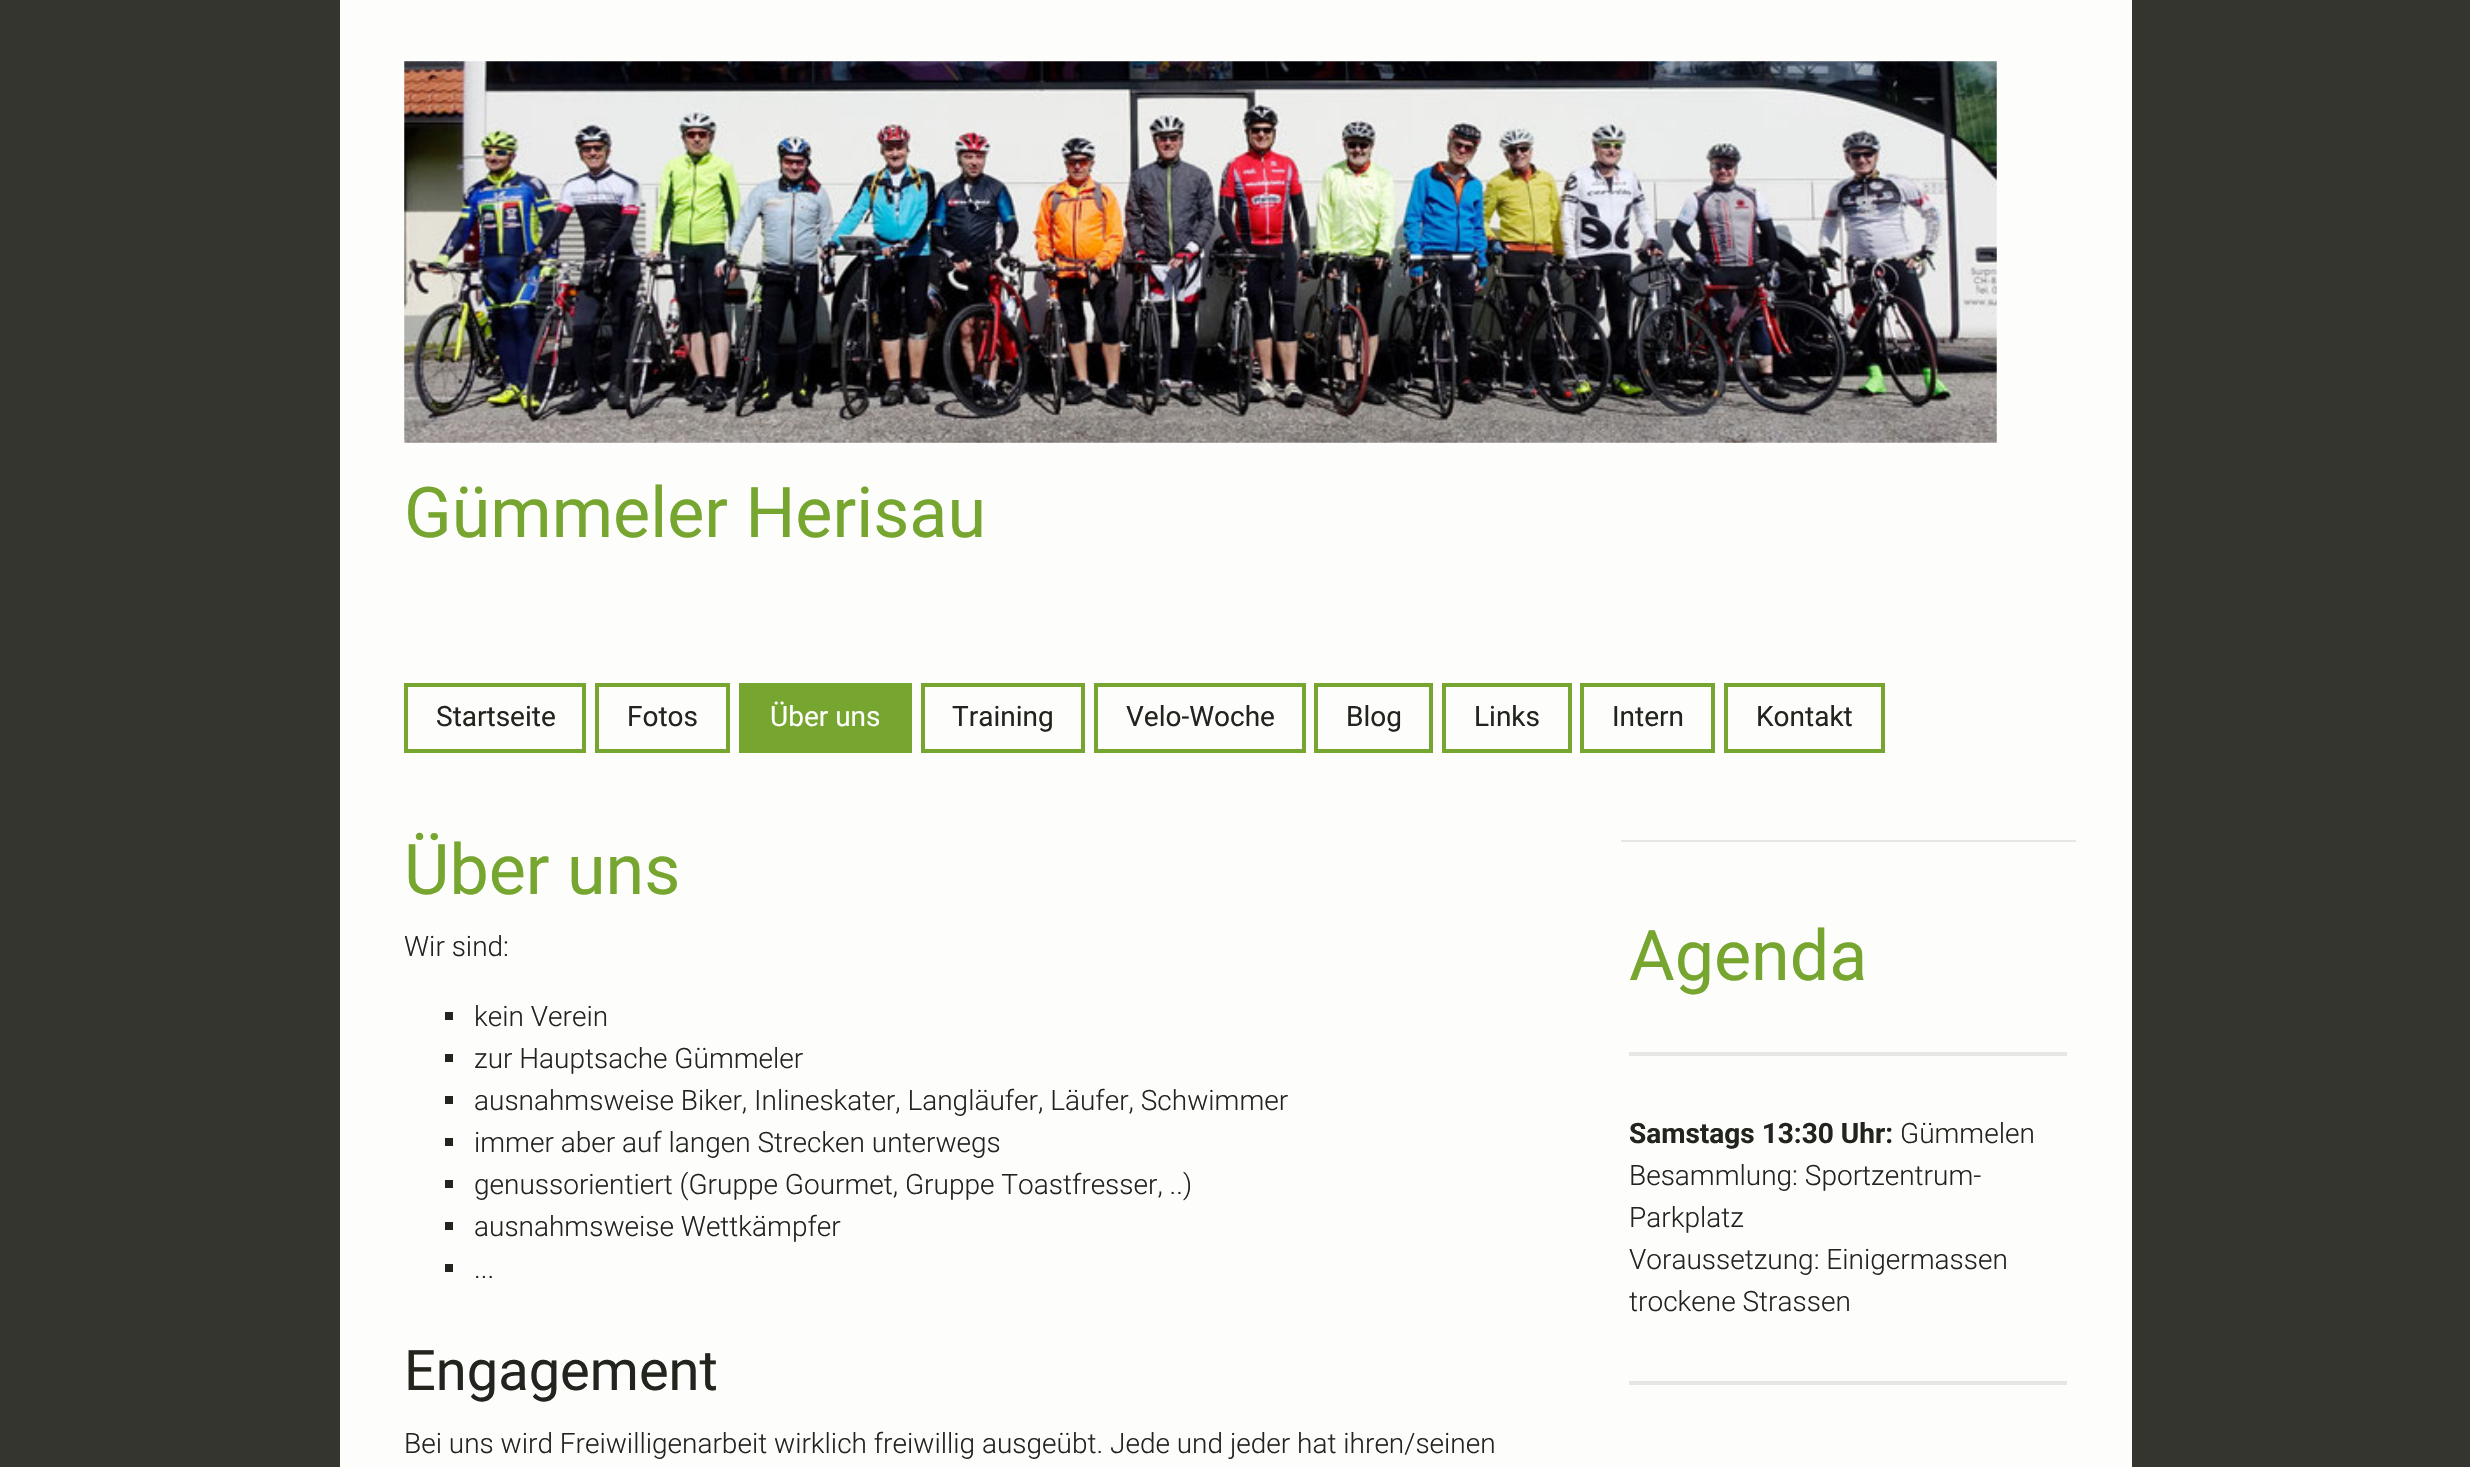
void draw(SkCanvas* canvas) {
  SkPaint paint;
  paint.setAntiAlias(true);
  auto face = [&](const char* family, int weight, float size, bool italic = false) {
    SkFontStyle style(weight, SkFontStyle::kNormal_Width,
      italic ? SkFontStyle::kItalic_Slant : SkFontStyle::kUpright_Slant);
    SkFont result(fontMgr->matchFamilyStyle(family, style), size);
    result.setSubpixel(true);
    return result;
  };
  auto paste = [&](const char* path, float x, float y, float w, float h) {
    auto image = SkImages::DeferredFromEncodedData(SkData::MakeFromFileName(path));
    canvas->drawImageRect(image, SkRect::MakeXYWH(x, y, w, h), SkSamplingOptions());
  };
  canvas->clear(0xff35352f);
  paint.setColor(0xfffdfdfc);
  canvas->drawRect(SkRect::MakeXYWH(340, 0, 1792, 1467), paint);
  paste("img/1.png", 404, 61, 1593, 382);
  paint.setStroke(true);
  paint.setStrokeWidth(4);
  paint.setColor(0xff77a630);
  canvas->drawRect(SkRect::MakeXYWH(406, 685, 178, 66), paint);
  canvas->drawRect(SkRect::MakeXYWH(597, 685, 131, 66), paint);
  canvas->drawRect(SkRect::MakeXYWH(741, 685, 169, 66), paint);
  paint.setStroke(false);
  canvas->drawRect(SkRect::MakeXYWH(743, 687, 165, 62), paint);
  paint.setStroke(true);
  canvas->drawRect(SkRect::MakeXYWH(923, 685, 160, 66), paint);
  canvas->drawRect(SkRect::MakeXYWH(1096, 685, 208, 66), paint);
  canvas->drawRect(SkRect::MakeXYWH(1316, 685, 115, 66), paint);
  canvas->drawRect(SkRect::MakeXYWH(1444, 685, 126, 66), paint);
  canvas->drawRect(SkRect::MakeXYWH(1582, 685, 131, 66), paint);
  canvas->drawRect(SkRect::MakeXYWH(1726, 685, 157, 66), paint);
  paint.setStroke(false);
  {
    const struct { float x, y, w, h; SkColor color; } items[] = {
      {445, 1012, 8, 8, 0xff22251e},
      {445, 1054, 8, 8, 0xff22251e},
      {445, 1096, 8, 8, 0xff22251e},
      {445, 1138, 8, 8, 0xff22251e},
      {445, 1180, 8, 8, 0xff22251e},
      {445, 1222, 8, 8, 0xff22251e},
      {445, 1264, 8, 8, 0xff22251e},
      {1621, 840, 455, 2, 0xffe6e7e4},
      {1629, 1052, 438, 4, 0xffe6e7e4},
      {1629, 1381, 438, 4, 0xffe6e7e4},
    };
    for (auto [x, y, w, h, color] : items) {
      paint.setColor(color);
      canvas->drawRect(SkRect::MakeXYWH(x, y, w, h), paint);
    }
  }
  auto f0 = face("Roboto", 400, 70);
  paint.setColor(0xff77a630);
  canvas->drawString("Gümmeler Herisau", 404, 537, f0, paint);
  auto f1 = face("Roboto", 400, 28);
  paint.setColor(0xff22251e);
  canvas->drawString("Startseite", 436, 726, f1, paint);
  canvas->drawString("Fotos", 627, 726, f1, paint);
  paint.setColor(0xfffdfdfc);
  canvas->drawString("Über uns", 770, 726, f1, paint);
  paint.setColor(0xff22251e);
  {
    const struct { const char* s; float x, y; } items[] = {
      {"Training", 952, 726},
      {"Velo-Woche", 1126, 726},
      {"Blog", 1346, 726},
      {"Links", 1474, 726},
      {"Intern", 1612, 726},
      {"Kontakt", 1756, 726},
    };
    for (auto [s, x, y] : items) {
      canvas->drawString(s, x, y, f1, paint);
    }
  }
  paint.setColor(0xff77a630);
  canvas->drawString("Über uns", 404, 894, f0, paint);
  auto f2 = face("Roboto", 300, 28);
  paint.setColor(0xff22251e);
  {
    const struct { const char* s; float x, y; } items[] = {
      {"Wir sind:", 404, 956},
      {"kein Verein", 474, 1026},
      {"zur Hauptsache Gümmeler", 474, 1068},
      {"ausnahmsweise Biker, Inlineskater, Langläufer, Läufer, Schwimmer", 474, 1110},
      {"immer aber auf langen Strecken unterwegs", 474, 1152},
      {"genussorientiert (Gruppe Gourmet, Gruppe Toastfresser, ..)", 474, 1194},
      {"ausnahmsweise Wettkämpfer", 474, 1236},
      {"...", 474, 1278},
    };
    for (auto [s, x, y] : items) {
      canvas->drawString(s, x, y, f2, paint);
    }
  }
  auto f3 = face("Roboto", 400, 56);
  canvas->drawString("Engagement", 404, 1390, f3, paint);
  canvas->drawString("Bei uns wird Freiwilligenarbeit wirklich freiwillig ausgeübt. Jede und jeder hat ihren/seinen", 404, 1453, f2, paint);
  paint.setColor(0xff77a630);
  canvas->drawString("Agenda", 1629, 980, f0, paint);
  auto f4 = face("Roboto", 700, 28);
  paint.setColor(0xff22251e);
  canvas->drawString("Samstags 13:30 Uhr:", 1629, 1143, f4, paint);
  {
    const struct { const char* s; float x, y; } items[] = {
      {"Gümmelen", 1900, 1143},
      {"Besammlung: Sportzentrum-", 1629, 1185},
      {"Parkplatz", 1629, 1227},
      {"Voraussetzung: Einigermassen", 1629, 1269},
      {"trockene Strassen", 1629, 1311},
    };
    for (auto [s, x, y] : items) {
      canvas->drawString(s, x, y, f2, paint);
    }
  }
}
